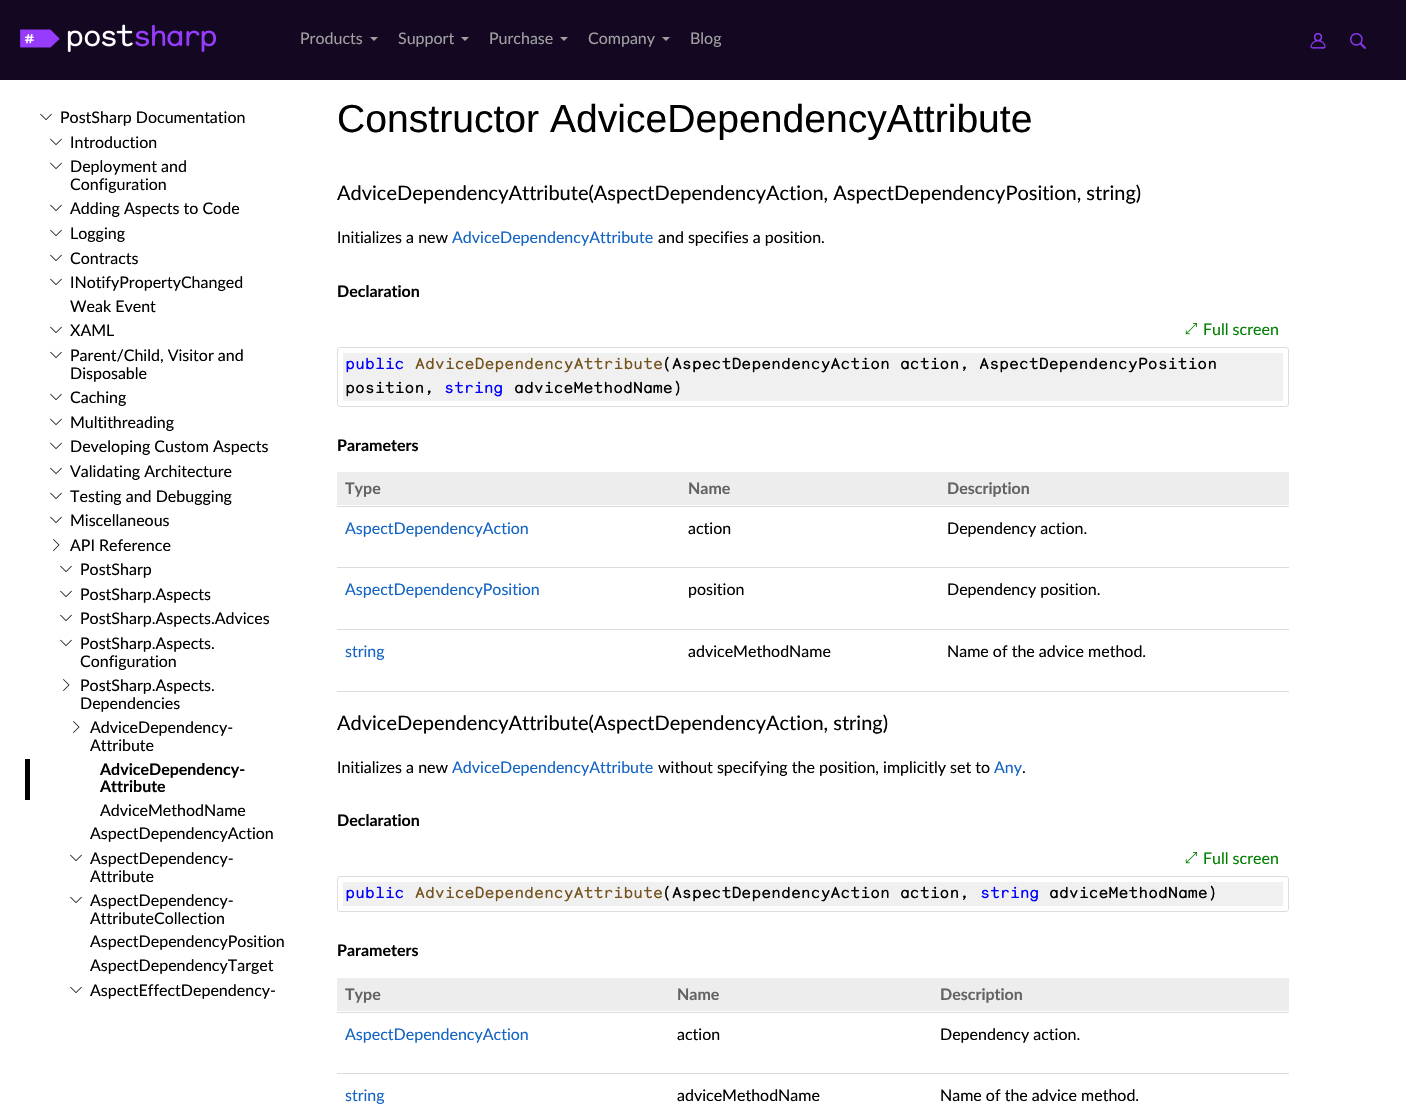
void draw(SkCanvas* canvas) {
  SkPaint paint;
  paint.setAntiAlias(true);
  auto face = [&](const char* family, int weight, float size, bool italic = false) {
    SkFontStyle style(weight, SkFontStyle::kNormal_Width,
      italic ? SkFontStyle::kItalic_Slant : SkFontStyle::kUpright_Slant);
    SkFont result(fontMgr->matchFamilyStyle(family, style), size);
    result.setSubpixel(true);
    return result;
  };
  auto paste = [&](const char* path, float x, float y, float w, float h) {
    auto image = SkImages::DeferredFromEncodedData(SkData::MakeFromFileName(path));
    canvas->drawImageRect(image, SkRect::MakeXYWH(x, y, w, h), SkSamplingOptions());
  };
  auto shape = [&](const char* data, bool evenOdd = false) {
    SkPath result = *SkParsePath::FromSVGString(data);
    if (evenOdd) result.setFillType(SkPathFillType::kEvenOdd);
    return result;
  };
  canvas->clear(0xffffffff);
  paint.setColor(0xff130722);
  canvas->drawRect(SkRect::MakeXYWH(0, 0, 1406, 80), paint);
  paste("img/1.png", 20, 24, 196, 28);
  paint.setColor(0xffa0a0a0);
  canvas->drawPath(shape("M370 37H378L374 41Z"), paint);
  canvas->drawPath(shape("M461 37H469L465 41Z"), paint);
  canvas->drawPath(shape("M560 37H568L564 41Z"), paint);
  canvas->drawPath(shape("M662 37H670L666 41Z"), paint);
  paste("img/2.png", 1310, 33, 16, 16);
  paste("img/3.png", 1350, 33, 16, 16);
  paste("img/4.png", 40, 113, 12, 7);
  paste("img/4.png", 50, 138, 12, 7);
  paste("img/4.png", 50, 162, 12, 7);
  paste("img/4.png", 50, 204, 12, 7);
  paste("img/4.png", 50, 229, 12, 7);
  paste("img/4.png", 50, 254, 12, 7);
  paste("img/4.png", 50, 278, 12, 7);
  paste("img/4.png", 50, 326, 12, 7);
  paste("img/4.png", 50, 351, 12, 7);
  paste("img/4.png", 50, 393, 12, 7);
  paste("img/4.png", 50, 418, 12, 7);
  paste("img/4.png", 50, 442, 12, 7);
  paste("img/4.png", 50, 467, 12, 7);
  paste("img/4.png", 50, 492, 12, 7);
  paste("img/4.png", 50, 516, 12, 7);
  paste("img/5.png", 53, 539, 7, 12);
  paste("img/4.png", 60, 565, 12, 7);
  paste("img/4.png", 60, 590, 12, 7);
  paste("img/4.png", 60, 614, 12, 7);
  paste("img/4.png", 60, 639, 12, 7);
  paste("img/5.png", 63, 679, 7, 12);
  paste("img/5.png", 73, 721, 7, 12);
  paint.setColor(0xff000000);
  canvas->drawRect(SkRect::MakeXYWH(25, 759, 5, 41), paint);
  paste("img/4.png", 70, 854, 12, 7);
  paste("img/4.png", 70, 896, 12, 7);
  paste("img/4.png", 70, 986, 12, 7);
  paste("img/6.png", 1185, 323, 12, 12);
  paint.setStroke(true);
  paint.setStrokeWidth(1);
  paint.setColor(0xffdddddd);
  canvas->drawRoundRect(SkRect::MakeXYWH(337.5f, 347.5f, 951, 59), 2.5f, 2.5f, paint);
  paint.setStroke(false);
  {
    const struct { float x, y, w, h; SkColor color; } items[] = {
      {343, 353, 940, 48, 0xfff0f0f0},
      {337, 472, 952, 33, 0xffededed},
      {337, 506, 952, 1, 0xffdbdbdb},
      {337, 567, 952, 1, 0xffdbdbdb},
      {337, 629, 952, 1, 0xffdbdbdb},
      {337, 691, 952, 1, 0xffdbdbdb},
    };
    for (auto [x, y, w, h, color] : items) {
      paint.setColor(color);
      canvas->drawRect(SkRect::MakeXYWH(x, y, w, h), paint);
    }
  }
  paste("img/6.png", 1185, 852, 12, 12);
  paint.setStroke(true);
  paint.setColor(0xffdddddd);
  canvas->drawRoundRect(SkRect::MakeXYWH(337.5f, 876.5f, 951, 35), 2.5f, 2.5f, paint);
  paint.setStroke(false);
  {
    const struct { float x, y, w, h; SkColor color; } items[] = {
      {343, 882, 940, 24, 0xfff0f0f0},
      {337, 978, 952, 33, 0xffededed},
      {337, 1012, 952, 1, 0xffdbdbdb},
      {337, 1073, 952, 1, 0xffdbdbdb},
    };
    for (auto [x, y, w, h, color] : items) {
      paint.setColor(color);
      canvas->drawRect(SkRect::MakeXYWH(x, y, w, h), paint);
    }
  }
  auto f0 = face("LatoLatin", 400, 16);
  paint.setColor(0xffa0a0a0);
  {
    const struct { const char* s; float x, y; } items[] = {
      {"Products", 300, 44},
      {"Support", 398, 44},
      {"Purchase", 489, 44},
      {"Company", 588, 44},
      {"Blog", 690, 44},
    };
    for (auto [s, x, y] : items) {
      canvas->drawString(s, x, y, f0, paint);
    }
  }
  paint.setColor(0xff000000);
  {
    const struct { const char* s; float x, y; } items[] = {
      {"PostSharp Documentation", 60, 123},
      {"Introduction", 70, 148},
      {"Deployment and", 70, 172},
      {"Configuration", 70, 190},
      {"Adding Aspects to Code", 70, 214},
      {"Logging", 70, 239},
      {"Contracts", 70, 264},
      {"INotifyPropertyChanged", 70, 288},
      {"Weak Event", 70, 312},
      {"XAML", 70, 336},
      {"Parent/Child, Visitor and", 70, 361},
      {"Disposable", 70, 379},
      {"Caching", 70, 403},
      {"Multithreading", 70, 428},
      {"Developing Custom Aspects", 70, 452},
      {"Validating Architecture", 70, 477},
      {"Testing and Debugging", 70, 502},
      {"Miscellaneous", 70, 526},
      {"API Reference", 70, 551},
      {"PostSharp", 80, 575},
      {"PostSharp.Aspects", 80, 600},
      {"PostSharp.Aspects.Advices", 80, 624},
      {"PostSharp.Aspects.", 80, 649},
      {"Configuration", 80, 667},
      {"PostSharp.Aspects.", 80, 691},
      {"Dependencies", 80, 709},
      {"AdviceDependency-", 90, 733},
      {"Attribute", 90, 751},
    };
    for (auto [s, x, y] : items) {
      canvas->drawString(s, x, y, f0, paint);
    }
  }
  auto f1 = face("LatoLatin", 700, 16);
  canvas->drawString("AdviceDependency-", 100, 775, f1, paint);
  canvas->drawString("Attribute", 100, 792, f1, paint);
  {
    const struct { const char* s; float x, y; } items[] = {
      {"AdviceMethodName", 100, 816},
      {"AspectDependencyAction", 90, 839},
      {"AspectDependency-", 90, 864},
      {"Attribute", 90, 882},
      {"AspectDependency-", 90, 906},
      {"AttributeCollection", 90, 924},
      {"AspectDependencyPosition", 90, 947},
      {"AspectDependencyTarget", 90, 971},
      {"AspectEffectDependency-", 90, 996},
    };
    for (auto [s, x, y] : items) {
      canvas->drawString(s, x, y, f0, paint);
    }
  }
  auto f2 = face("Liberation Sans", 400, 39.1f);
  canvas->drawString("Constructor AdviceDependencyAttribute", 337, 132, f2, paint);
  auto f3 = face("LatoLatin", 400, 20);
  canvas->drawString("AdviceDependencyAttribute(AspectDependencyAction, AspectDependencyPosition, string)", 337, 200, f3, paint);
  canvas->drawString("Initializes a new", 337, 243, f0, paint);
  paint.setColor(0xff1364c4);
  canvas->drawString("AdviceDependencyAttribute", 452, 243, f0, paint);
  paint.setColor(0xff000000);
  canvas->drawString("and specifies a position.", 658, 243, f0, paint);
  canvas->drawString("Declaration", 337, 297, f1, paint);
  paint.setColor(0xff008000);
  canvas->drawString("Full screen", 1203, 335, f0, paint);
  auto f4 = face("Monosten", 400, 16);
  paint.setColor(0xff0000ff);
  canvas->drawString("public", 345, 369, f4, paint);
  paint.setColor(0xff74531f);
  canvas->drawString("AdviceDependencyAttribute", 415, 369, f4, paint);
  paint.setColor(0xff000000);
  canvas->drawString("(AspectDependencyAction action, AspectDependencyPosition", 662, 369, f4, paint);
  canvas->drawString("position,", 345, 393, f4, paint);
  paint.setColor(0xff0000ff);
  canvas->drawString("string", 444, 393, f4, paint);
  paint.setColor(0xff000000);
  canvas->drawString("adviceMethodName)", 514, 393, f4, paint);
  canvas->drawString("Parameters", 337, 451, f1, paint);
  paint.setColor(0xff636363);
  {
    const struct { const char* s; float x, y; } items[] = {
      {"Type", 345, 494},
      {"Name", 688, 494},
      {"Description", 947, 494},
    };
    for (auto [s, x, y] : items) {
      canvas->drawString(s, x, y, f1, paint);
    }
  }
  paint.setColor(0xff1364c4);
  canvas->drawString("AspectDependencyAction", 345, 534, f0, paint);
  paint.setColor(0xff000000);
  canvas->drawString("action", 688, 534, f0, paint);
  canvas->drawString("Dependency action.", 947, 534, f0, paint);
  paint.setColor(0xff1364c4);
  canvas->drawString("AspectDependencyPosition", 345, 595, f0, paint);
  paint.setColor(0xff000000);
  canvas->drawString("position", 688, 595, f0, paint);
  canvas->drawString("Dependency position.", 947, 595, f0, paint);
  paint.setColor(0xff1364c4);
  canvas->drawString("string", 345, 657, f0, paint);
  paint.setColor(0xff000000);
  canvas->drawString("adviceMethodName", 688, 657, f0, paint);
  canvas->drawString("Name of the advice method.", 947, 657, f0, paint);
  canvas->drawString("AdviceDependencyAttribute(AspectDependencyAction, string)", 337, 730, f3, paint);
  canvas->drawString("Initializes a new", 337, 773, f0, paint);
  paint.setColor(0xff1364c4);
  canvas->drawString("AdviceDependencyAttribute", 452, 773, f0, paint);
  paint.setColor(0xff000000);
  canvas->drawString("without specifying the position, implicitly set to", 658, 773, f0, paint);
  paint.setColor(0xff1364c4);
  canvas->drawString("Any", 994, 773, f0, paint);
  paint.setColor(0xff000000);
  canvas->drawString(".", 1022, 773, f0, paint);
  canvas->drawString("Declaration", 337, 826, f1, paint);
  paint.setColor(0xff008000);
  canvas->drawString("Full screen", 1203, 864, f0, paint);
  paint.setColor(0xff0000ff);
  canvas->drawString("public", 345, 898, f4, paint);
  paint.setColor(0xff74531f);
  canvas->drawString("AdviceDependencyAttribute", 415, 898, f4, paint);
  paint.setColor(0xff000000);
  canvas->drawString("(AspectDependencyAction action,", 662, 898, f4, paint);
  paint.setColor(0xff0000ff);
  canvas->drawString("string", 980, 898, f4, paint);
  paint.setColor(0xff000000);
  canvas->drawString("adviceMethodName)", 1049, 898, f4, paint);
  canvas->drawString("Parameters", 337, 956, f1, paint);
  paint.setColor(0xff636363);
  {
    const struct { const char* s; float x, y; } items[] = {
      {"Type", 345, 1000},
      {"Name", 677, 1000},
      {"Description", 940, 1000},
    };
    for (auto [s, x, y] : items) {
      canvas->drawString(s, x, y, f1, paint);
    }
  }
  paint.setColor(0xff1364c4);
  canvas->drawString("AspectDependencyAction", 345, 1040, f0, paint);
  paint.setColor(0xff000000);
  canvas->drawString("action", 677, 1040, f0, paint);
  canvas->drawString("Dependency action.", 940, 1040, f0, paint);
  paint.setColor(0xff1364c4);
  canvas->drawString("string", 345, 1101, f0, paint);
  paint.setColor(0xff000000);
  canvas->drawString("adviceMethodName", 677, 1101, f0, paint);
  canvas->drawString("Name of the advice method.", 940, 1101, f0, paint);
}
